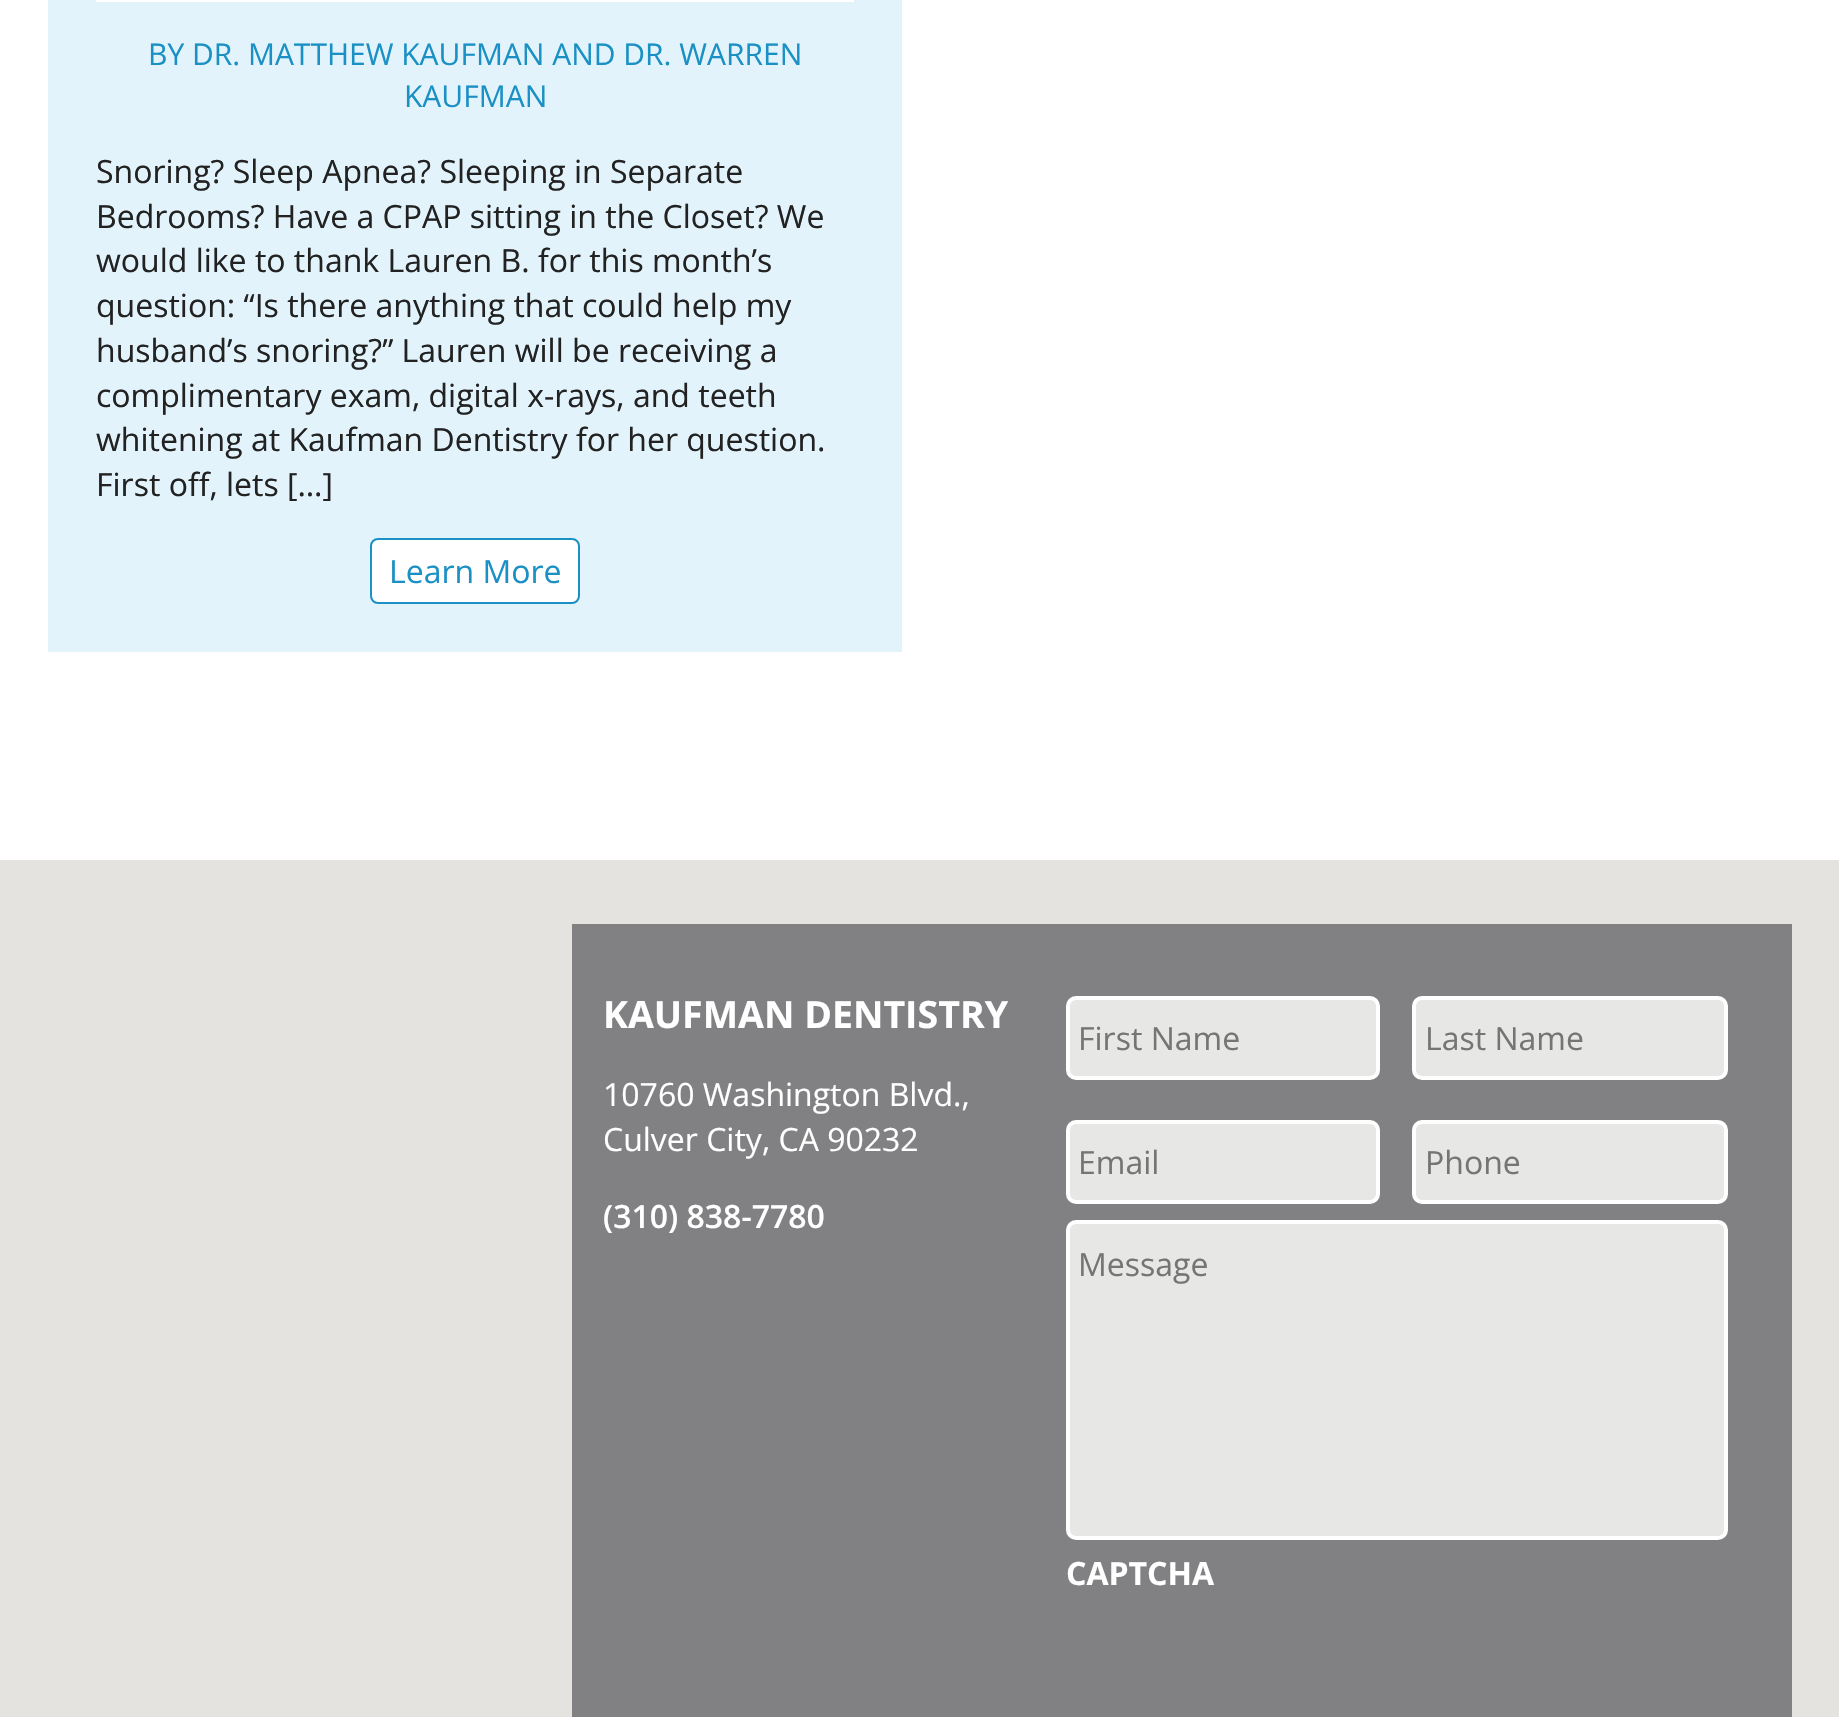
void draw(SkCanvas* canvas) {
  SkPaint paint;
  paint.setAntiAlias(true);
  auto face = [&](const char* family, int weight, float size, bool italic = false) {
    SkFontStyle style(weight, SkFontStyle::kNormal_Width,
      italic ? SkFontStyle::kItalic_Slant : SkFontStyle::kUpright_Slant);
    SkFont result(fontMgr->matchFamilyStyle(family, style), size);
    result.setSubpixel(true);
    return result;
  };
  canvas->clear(0xffffffff);
  paint.setColor(0xffe2f3fb);
  canvas->drawRect(SkRect::MakeXYWH(48, 0, 854, 652), paint);
  paint.setColor(0xffffffff);
  canvas->drawRect(SkRect::MakeXYWH(96, 0, 758, 2), paint);
  canvas->drawRoundRect(SkRect::MakeXYWH(371, 539, 208, 64), 7, 7, paint);
  paint.setStroke(true);
  paint.setStrokeWidth(2);
  paint.setColor(0xff1a90c4);
  canvas->drawRoundRect(SkRect::MakeXYWH(371, 539, 208, 64), 7, 7, paint);
  paint.setStroke(false);
  paint.setColor(0xffe5e3df);
  canvas->drawRect(SkRect::MakeXYWH(0, 860, 1839, 857), paint);
  paint.setColor(0xff818183);
  canvas->drawRect(SkRect::MakeXYWH(572, 924, 1220, 793), paint);
  paint.setColor(0xffe7e7e6);
  canvas->drawRoundRect(SkRect::MakeXYWH(1068, 998, 310, 80), 8, 8, paint);
  paint.setStroke(true);
  paint.setStrokeWidth(4);
  paint.setColor(0xffffffff);
  canvas->drawRoundRect(SkRect::MakeXYWH(1068, 998, 310, 80), 8, 8, paint);
  paint.setStroke(false);
  paint.setColor(0xffe7e7e6);
  canvas->drawRoundRect(SkRect::MakeXYWH(1414, 998, 312, 80), 8, 8, paint);
  paint.setStroke(true);
  paint.setColor(0xffffffff);
  canvas->drawRoundRect(SkRect::MakeXYWH(1414, 998, 312, 80), 8, 8, paint);
  paint.setStroke(false);
  paint.setColor(0xffe7e7e6);
  canvas->drawRoundRect(SkRect::MakeXYWH(1068, 1122, 310, 80), 8, 8, paint);
  paint.setStroke(true);
  paint.setColor(0xffffffff);
  canvas->drawRoundRect(SkRect::MakeXYWH(1068, 1122, 310, 80), 8, 8, paint);
  paint.setStroke(false);
  paint.setColor(0xffe7e7e6);
  canvas->drawRoundRect(SkRect::MakeXYWH(1414, 1122, 312, 80), 8, 8, paint);
  paint.setStroke(true);
  paint.setColor(0xffffffff);
  canvas->drawRoundRect(SkRect::MakeXYWH(1414, 1122, 312, 80), 8, 8, paint);
  paint.setStroke(false);
  paint.setColor(0xffe7e7e6);
  canvas->drawRoundRect(SkRect::MakeXYWH(1068, 1222, 658, 316), 8, 8, paint);
  paint.setStroke(true);
  paint.setColor(0xffffffff);
  canvas->drawRoundRect(SkRect::MakeXYWH(1068, 1222, 658, 316), 8, 8, paint);
  auto f0 = face("Open Sans", 400, 30);
  paint.setStroke(false);
  paint.setColor(0xff1a90c4);
  canvas->drawString("BY DR. MATTHEW KAUFMAN AND DR. WARREN", 148, 65, f0, paint);
  canvas->drawString("KAUFMAN", 404, 107, f0, paint);
  auto f1 = face("Open Sans", 400, 32);
  paint.setColor(0xff222222);
  {
    const struct { const char* s; float x, y; } items[] = {
      {"Snoring? Sleep Apnea? Sleeping in Separate", 96, 183},
      {"Bedrooms? Have a CPAP sitting in the Closet? We", 96, 228},
      {"would like to thank Lauren B. for this month’s", 96, 272},
      {"question: “Is there anything that could help my", 96, 317},
      {"husband’s snoring?” Lauren will be receiving a", 96, 362},
      {"complimentary exam, digital x-rays, and teeth", 96, 407},
      {"whitening at Kaufman Dentistry for her question.", 96, 451},
      {"First off, lets […]", 96, 496},
    };
    for (auto [s, x, y] : items) {
      canvas->drawString(s, x, y, f1, paint);
    }
  }
  paint.setColor(0xff1a90c4);
  canvas->drawString("Learn More", 389, 583, f1, paint);
  auto f2 = face("Open Sans", 700, 37.5f);
  paint.setColor(0xffffffff);
  canvas->drawString("KAUFMAN DENTISTRY", 603, 1028, f2, paint);
  canvas->drawString("10760 Washington Blvd.,", 603, 1106, f1, paint);
  canvas->drawString("Culver City, CA 90232", 603, 1151, f1, paint);
  auto f3 = face("Open Sans", 600, 32);
  canvas->drawString("(310) 838-7780", 603, 1228, f3, paint);
  paint.setColor(0xff757575);
  {
    const struct { const char* s; float x, y; } items[] = {
      {"First Name", 1078, 1050},
      {"Last Name", 1425, 1050},
      {"Email", 1078, 1174},
      {"Phone", 1425, 1174},
      {"Message", 1078, 1276},
    };
    for (auto [s, x, y] : items) {
      canvas->drawString(s, x, y, f1, paint);
    }
  }
  auto f4 = face("Open Sans", 700, 32);
  paint.setColor(0xffffffff);
  canvas->drawString("CAPTCHA", 1066, 1585, f4, paint);
}
